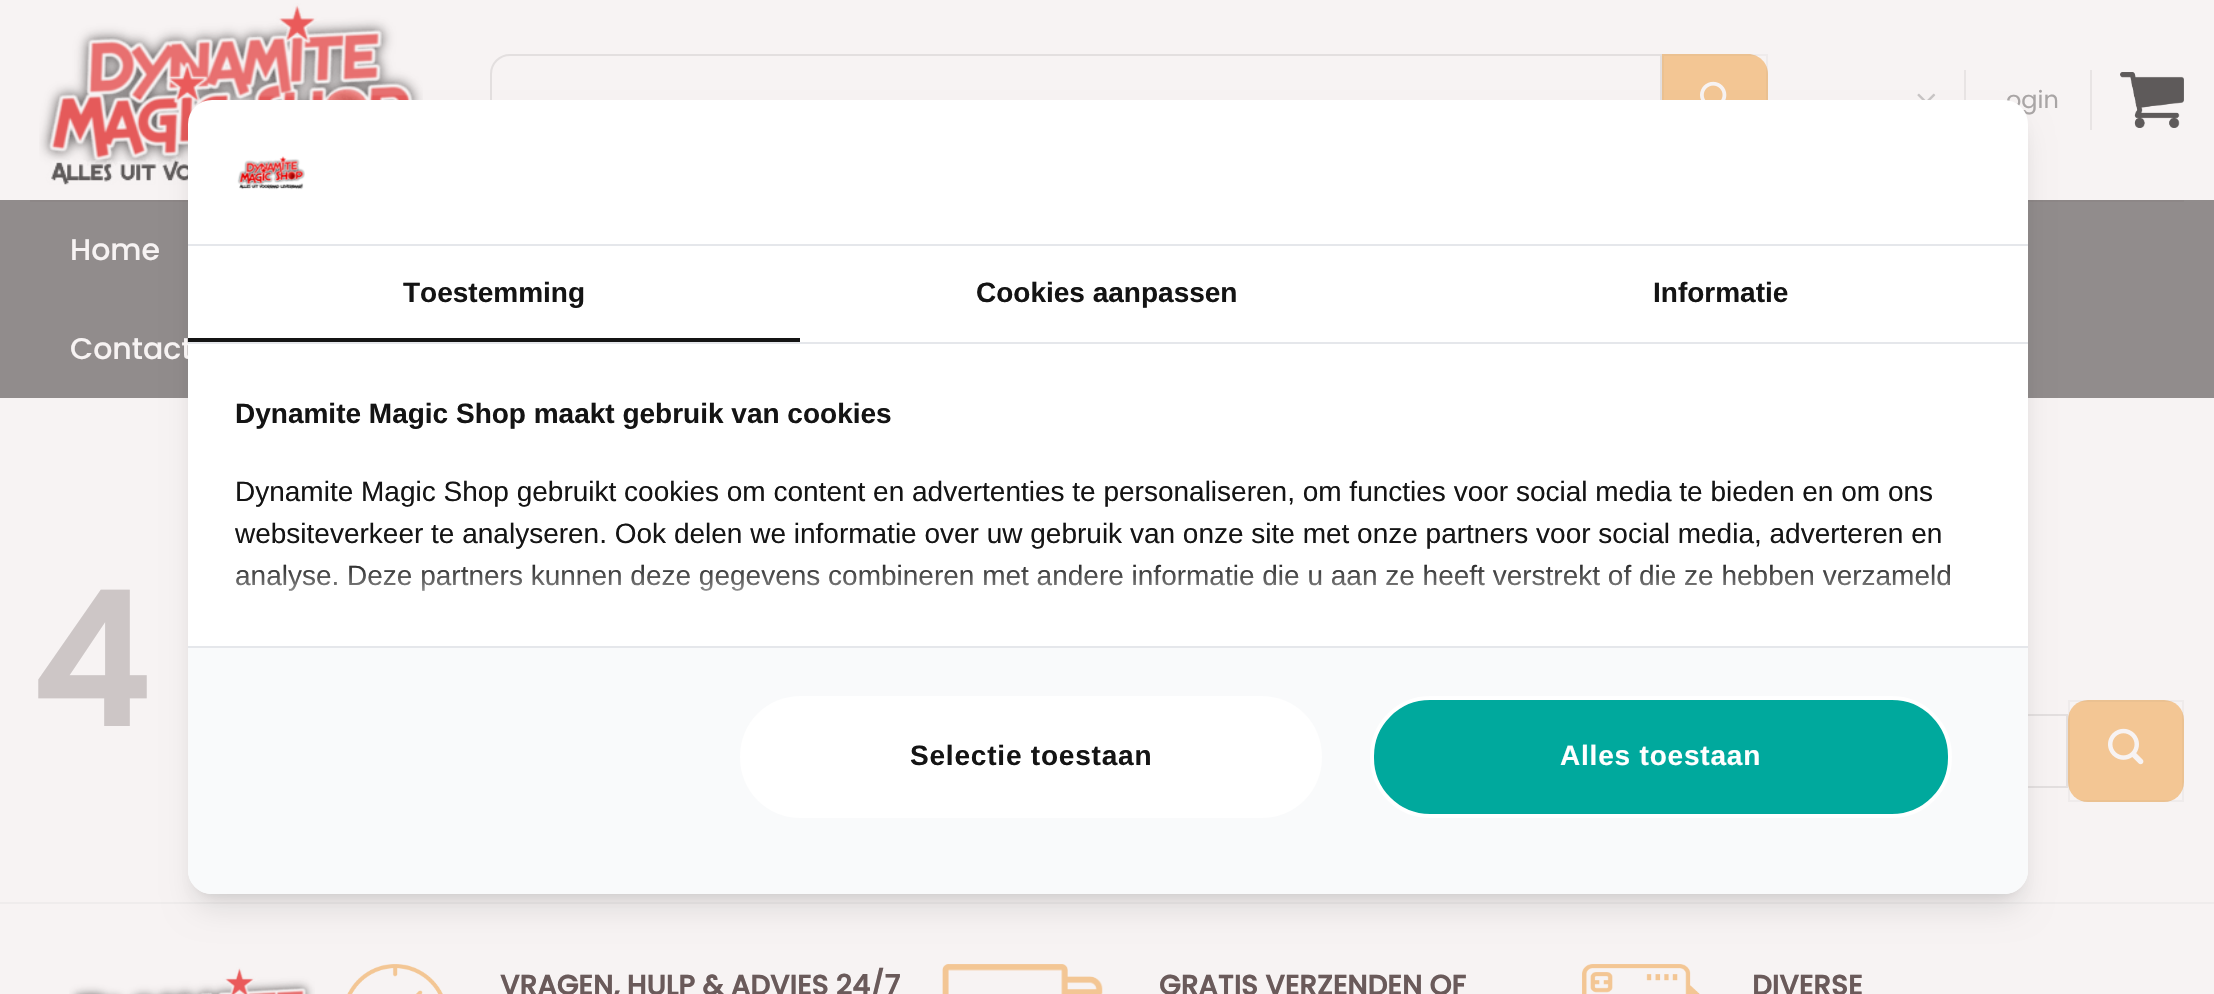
void draw(SkCanvas* canvas) {
  SkPaint paint;
  paint.setAntiAlias(true);
  auto face = [&](const char* family, int weight, float size, bool italic = false) {
    SkFontStyle style(weight, SkFontStyle::kNormal_Width,
      italic ? SkFontStyle::kItalic_Slant : SkFontStyle::kUpright_Slant);
    SkFont result(fontMgr->matchFamilyStyle(family, style), size);
    result.setSubpixel(true);
    return result;
  };
  auto writeSpaced = [&](const char* s, float x, float y, const SkFont& font, const SkPaint& ink, float letter, float word) {
    std::vector<SkGlyphID> glyphs(font.countText(s, strlen(s), SkTextEncoding::kUTF8));
    std::vector<float> xs(glyphs.size());
    font.textToGlyphs(s, strlen(s), SkTextEncoding::kUTF8, glyphs);
    font.getXPos(glyphs, xs, x);
    float extra = 0;
    for (size_t i = 0; i < glyphs.size(); i++) {
      xs[i] += extra;
      extra += letter + word * (glyphs[i] == font.unicharToGlyph(' '));
    }
    canvas->drawTextBlob(SkTextBlob::MakeFromPosHGlyphs(glyphs, xs, y, font), 0, 0, ink);
  };
  auto paste = [&](const char* path, float x, float y, float w, float h) {
    auto image = SkImages::DeferredFromEncodedData(SkData::MakeFromFileName(path));
    canvas->drawImageRect(image, SkRect::MakeXYWH(x, y, w, h), SkSamplingOptions());
  };
  auto shape = [&](const char* data, bool evenOdd = false) {
    SkPath result = *SkParsePath::FromSVGString(data);
    if (evenOdd) result.setFillType(SkPathFillType::kEvenOdd);
    return result;
  };
  canvas->clear(0xfff7f3f3);
  paste("img/1.png", 39, 3, 384, 182);
  paint.setStroke(true);
  paint.setStrokeWidth(2);
  paint.setColor(0xffe3dfdf);
  canvas->drawPath(shape("M510 55H1661V145H510C499.5 145 491 136.5 491 126V74C491 63.5 499.5 55 510 55Z"), paint);
  paint.setStroke(false);
  paint.setColor(0xfff3c694);
  canvas->drawPath(shape("M1662 54H1748C1759 54 1768 63 1768 74V126C1768 137 1759 146 1748 146H1662Z"), paint);
  paint.setStroke(true);
  paint.setColor(0x0d5e5a5a);
  canvas->drawRect(SkRect::MakeXYWH(1663, 55, 104, 90), paint);
  paste("img/2.png", 1700, 81, 27, 19);
  paste("img/3.png", 1917, 93, 19, 7);
  paint.setStroke(false);
  paint.setColor(0xffe8e4e4);
  canvas->drawRect(SkRect::MakeXYWH(1964, 70, 2, 30), paint);
  canvas->drawRect(SkRect::MakeXYWH(2090, 70, 2, 60), paint);
  paste("img/4.png", 2120, 72, 64, 56);
  paint.setColor(0xff918c8c);
  canvas->drawRect(SkRect::MakeXYWH(0, 200, 2214, 198), paint);
  paint.setColor(0xff8d8787);
  canvas->drawRect(SkRect::MakeXYWH(30, 200, 2154, 2), paint);
  paint.setStroke(true);
  paint.setColor(0xffe3dfdf);
  canvas->drawRect(SkRect::MakeXYWH(585, 715, 1482, 72), paint);
  paint.setStroke(false);
  paint.setColor(0xfff3c694);
  canvas->drawRoundRect(SkRect::MakeXYWH(2068, 700, 116, 102), 20, 20, paint);
  paint.setStroke(true);
  paint.setColor(0x0d5e5a5a);
  canvas->drawRect(SkRect::MakeXYWH(2069, 701, 114, 100), paint);
  paste("img/5.png", 2108, 728, 36, 37);
  paint.setStroke(false);
  paint.setColor(0xffefecec);
  canvas->drawRect(SkRect::MakeXYWH(0, 902, 2214, 2), paint);
  paste("img/6.png", 69, 967, 246, 27);
  paste("img/7.png", 347, 964, 96, 30);
  paste("img/8.png", 942, 964, 161, 30);
  paste("img/9.png", 1582, 964, 118, 30);
  paint.setColor(0x1a000000);
  paint.setMaskFilter(SkMaskFilter::MakeBlur(kNormal_SkBlurStyle, 6));
  canvas->drawRoundRect(SkRect::MakeXYWH(196, 116, 1824, 778), 16, 16, paint);
  paint.setMaskFilter(nullptr);
  paint.setMaskFilter(SkMaskFilter::MakeBlur(kNormal_SkBlurStyle, 15));
  canvas->drawRoundRect(SkRect::MakeXYWH(194, 126, 1828, 782), 18, 18, paint);
  paint.setMaskFilter(nullptr);
  auto f0 = face("Poppins", 400, 24);
  paint.setColor(0xffa9a5a5);
  canvas->drawString("ogin", 2006, 108, f0, paint);
  auto f1 = face("Poppins", 500, 30);
  paint.setColor(0xfff7f3f3);
  canvas->drawString("Home", 70, 260, f1, paint);
  canvas->drawString("Contact", 70, 359, f1, paint);
  auto f2 = face("Poppins", 700, 182);
  paint.setColor(0xffcdc6c6);
  canvas->drawString("4", 30, 726, f2, paint);
  auto f3 = face("Poppins", 700, 28);
  paint.setColor(0xff6a5a5a);
  {
    const struct { const char* s; float x, y; } items[] = {
      {"VRAGEN, HULP & ADVIES 24/7", 500, 995},
      {"GRATIS VERZENDEN OF", 1159, 995},
      {"DIVERSE", 1752, 995},
    };
    for (auto [s, x, y] : items) {
      canvas->drawString(s, x, y, f3, paint);
    }
  }
  paint.setColor(0xffffffff);
  canvas->drawRoundRect(SkRect::MakeXYWH(188, 100, 1840, 794), 24, 24, paint);
  paint.setColor(0xffe5e7eb);
  canvas->drawRect(SkRect::MakeXYWH(188, 244, 1840, 2), paint);
  paste("img/10.png", 237, 156, 68, 34);
  canvas->drawRect(SkRect::MakeXYWH(188, 342, 1840, 2), paint);
  paint.setColor(0xff141414);
  canvas->drawRect(SkRect::MakeXYWH(188, 338, 612, 4), paint);
  auto f4 = face("Liberation Sans", 700, 28);
  {
    const struct { const char* s; float x, y; } items[] = {
      {"Toestemming", 403, 302},
      {"Cookies aanpassen", 976, 302},
      {"Informatie", 1653, 302},
      {"Dynamite Magic Shop maakt gebruik van cookies", 235, 423},
    };
    for (auto [s, x, y] : items) {
      canvas->drawString(s, x, y, f4, paint);
    }
  }
  auto f5 = face("Liberation Sans", 400, 28);
  {
    const struct { const char* s; float x, y; } items[] = {
      {"Dynamite Magic Shop gebruikt cookies om content en advertenties te personaliseren, om functies voor social media te bieden en om ons", 235, 501},
      {"websiteverkeer te analyseren. Ook delen we informatie over uw gebruik van onze site met onze partners voor social media, adverteren en", 235, 543},
      {"analyse. Deze partners kunnen deze gegevens combineren met andere informatie die u aan ze heeft verstrekt of die ze hebben verzameld", 235, 585},
    };
    for (auto [s, x, y] : items) {
      canvas->drawString(s, x, y, f5, paint);
    }
  }
  canvas->save();
  canvas->clipPath(shape("M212 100H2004C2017.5 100 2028 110.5 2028 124V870C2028 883.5 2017.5 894 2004 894H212C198.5 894 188 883.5 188 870V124C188 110.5 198.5 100 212 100Z"), true);
  paint.setColor(0xffffffff);
  paint.setMaskFilter(SkMaskFilter::MakeBlur(kNormal_SkBlurStyle, 20));
  canvas->drawRect(SkRect::MakeXYWH(172, 590, 1872, 280), paint);
  paint.setMaskFilter(nullptr);
  canvas->restore();
  paint.setColor(0xfff9fafb);
  canvas->drawPath(shape("M188 646H2028V870C2028 883.5 2017.5 894 2004 894H212C198.5 894 188 883.5 188 870Z"), paint);
  paint.setColor(0xffe5e7eb);
  canvas->drawRect(SkRect::MakeXYWH(188, 646, 1840, 2), paint);
  paint.setColor(0xffffffff);
  canvas->drawRoundRect(SkRect::MakeXYWH(740, 696, 582, 122), 60, 60, paint);
  paint.setColor(0xff141414);
  writeSpaced("Selectie toestaan", 910, 765, f4, paint, 0.8f, 0);
  paint.setColor(0xff00a99d);
  canvas->drawRoundRect(SkRect::MakeXYWH(1372, 698, 578, 118), 58, 58, paint);
  paint.setStroke(true);
  paint.setStrokeWidth(4);
  paint.setColor(0xffffffff);
  canvas->drawRoundRect(SkRect::MakeXYWH(1372, 698, 578, 118), 58, 58, paint);
  paint.setStroke(false);
  writeSpaced("Alles toestaan", 1560, 765, f4, paint, 0.8f, 0);
}
